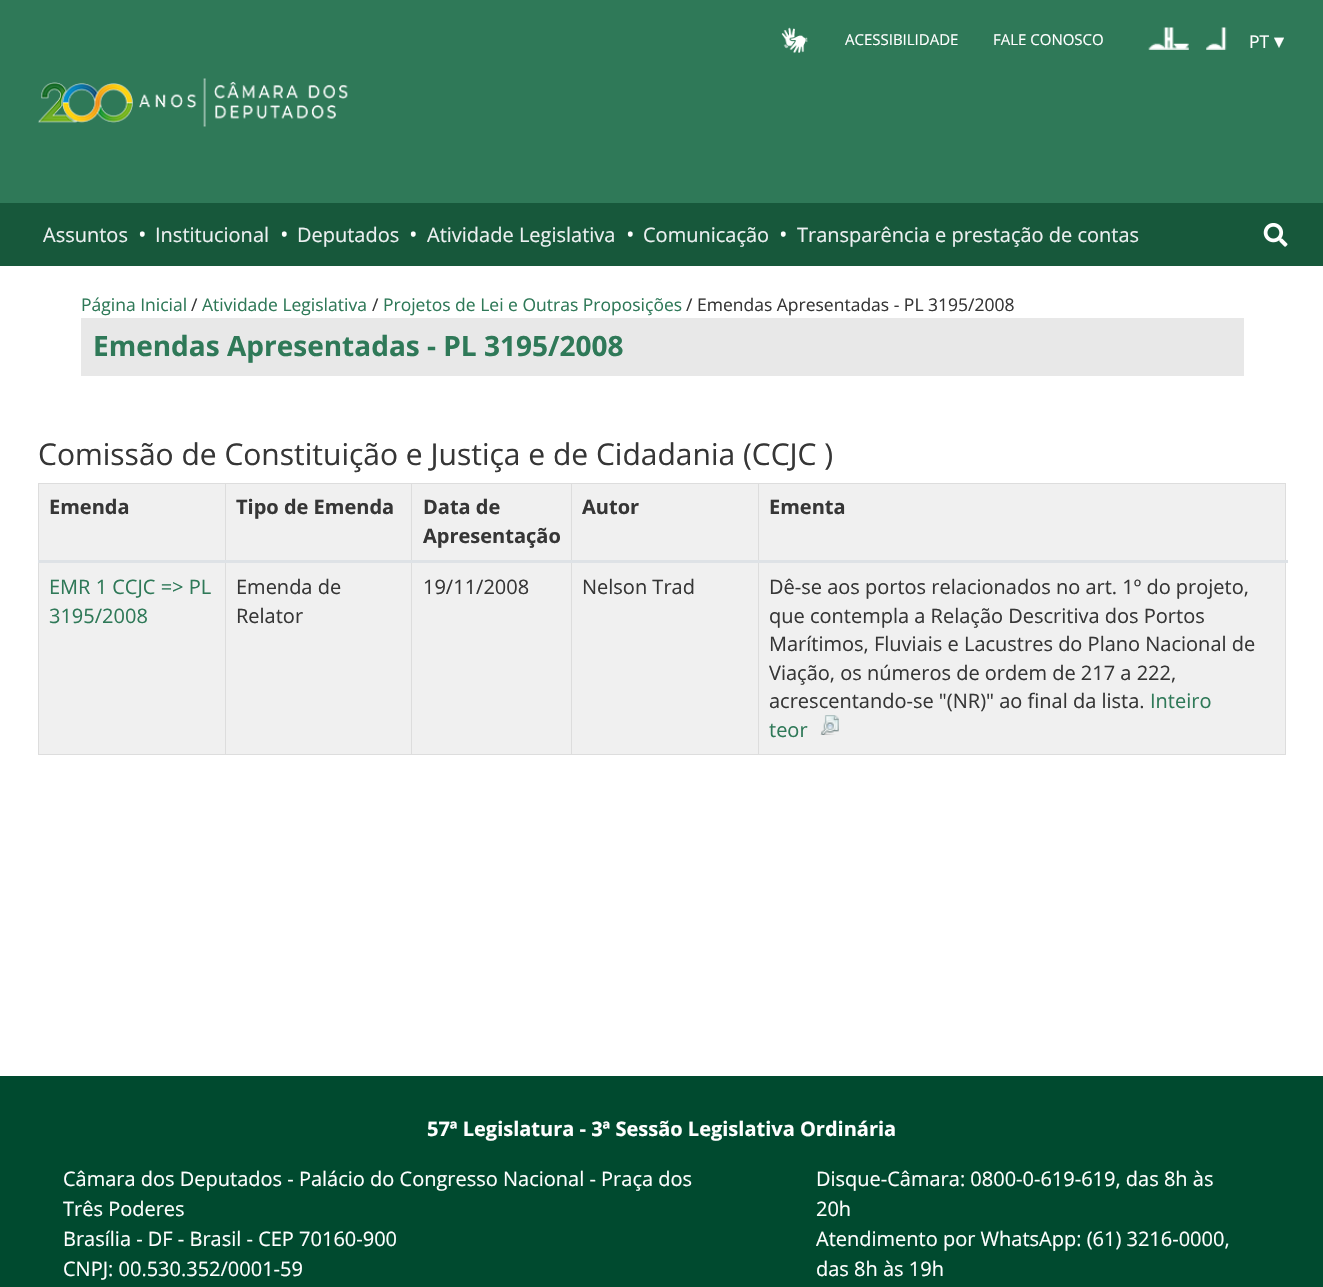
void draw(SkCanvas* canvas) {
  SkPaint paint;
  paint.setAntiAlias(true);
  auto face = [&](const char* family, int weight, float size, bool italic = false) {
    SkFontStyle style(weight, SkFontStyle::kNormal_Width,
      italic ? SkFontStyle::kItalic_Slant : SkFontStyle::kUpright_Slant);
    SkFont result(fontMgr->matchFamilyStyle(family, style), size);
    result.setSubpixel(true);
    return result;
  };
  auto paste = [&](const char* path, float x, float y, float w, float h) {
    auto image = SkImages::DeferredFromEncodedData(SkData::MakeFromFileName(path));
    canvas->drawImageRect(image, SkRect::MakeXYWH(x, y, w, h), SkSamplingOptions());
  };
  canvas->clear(0xffffffff);
  paint.setColor(0xff2f7958);
  canvas->drawRect(SkRect::MakeXYWH(0, 0, 1323, 203), paint);
  paste("img/1.png", 781, 27, 27, 26);
  paste("img/2.png", 1148, 27, 41, 23);
  paste("img/3.png", 1206, 27, 21, 23);
  paste("img/4.png", 38, 78, 310, 49);
  paint.setColor(0xff17583b);
  canvas->drawRect(SkRect::MakeXYWH(0, 203, 1323, 63), paint);
  paste("img/5.png", 1263, 223, 25, 24);
  {
    const struct { float x, y, w, h; SkColor color; } items[] = {
      {81, 318, 1163, 58, 0xffe8e8e8},
      {39, 484, 1246, 76, 0xfff0f0f0},
      {758, 483, 528, 1, 0xffdddddd},
      {39, 563, 1246, 191, 0xfff0f0f0},
      {1285, 561, 1, 194, 0xffdddddd},
      {758, 754, 528, 1, 0xffdddddd},
      {758, 561, 1, 194, 0xffdddddd},
      {758, 483, 1, 80, 0xffdddddd},
      {571, 483, 188, 1, 0xffdddddd},
      {571, 754, 188, 1, 0xffdddddd},
      {571, 561, 1, 194, 0xffdddddd},
      {571, 483, 1, 80, 0xffdddddd},
      {411, 483, 162, 1, 0xffdddddd},
      {411, 754, 162, 1, 0xffdddddd},
      {411, 561, 1, 194, 0xffdddddd},
      {411, 483, 1, 80, 0xffdddddd},
      {225, 483, 188, 1, 0xffdddddd},
      {225, 754, 188, 1, 0xffdddddd},
      {225, 561, 1, 194, 0xffdddddd},
      {225, 483, 1, 80, 0xffdddddd},
      {38, 483, 188, 1, 0xffdddddd},
      {38, 754, 188, 1, 0xffdddddd},
      {38, 561, 1, 194, 0xffdddddd},
      {38, 483, 1, 80, 0xffdddddd},
      {1285, 483, 1, 80, 0xffdddddd},
      {38, 560, 1250, 3, 0xffdee2e6},
    };
    for (auto [x, y, w, h, color] : items) {
      paint.setColor(color);
      canvas->drawRect(SkRect::MakeXYWH(x, y, w, h), paint);
    }
  }
  paste("img/6.png", 820, 715, 19, 20);
  paint.setColor(0xff004a2f);
  canvas->drawRect(SkRect::MakeXYWH(0, 1076, 1323, 211), paint);
  auto f0 = face("Open Sans", 400, 15);
  paint.setColor(0xffffffff);
  canvas->drawString("ACESSIBILIDADE", 845, 45, f0, paint);
  canvas->drawString("FALE CONOSCO", 993, 45, f0, paint);
  auto f1 = face("Open Sans", 400, 17.5f);
  canvas->drawString("PT", 1249, 48, f1, paint);
  auto f2 = face("DejaVu Sans", 400, 20);
  canvas->drawString("▾", 1274, 48, f2, paint);
  auto f3 = face("Open Sans", 400, 20);
  paint.setColor(0xffecf0f1);
  canvas->drawString("Assuntos", 43, 242, f3, paint);
  auto f4 = face("Open Sans", 400, 40);
  paint.setColor(0xffffffff);
  canvas->drawString("·", 137, 248, f4, paint);
  paint.setColor(0xffecf0f1);
  canvas->drawString("Institucional", 155, 242, f3, paint);
  paint.setColor(0xffffffff);
  canvas->drawString("·", 279, 248, f4, paint);
  paint.setColor(0xffecf0f1);
  canvas->drawString("Deputados", 297, 242, f3, paint);
  paint.setColor(0xffffffff);
  canvas->drawString("·", 408, 248, f4, paint);
  paint.setColor(0xffecf0f1);
  canvas->drawString("Atividade Legislativa", 427, 242, f3, paint);
  paint.setColor(0xffffffff);
  canvas->drawString("·", 625, 248, f4, paint);
  paint.setColor(0xffecf0f1);
  canvas->drawString("Comunicação", 643, 242, f3, paint);
  paint.setColor(0xffffffff);
  canvas->drawString("·", 778, 248, f4, paint);
  paint.setColor(0xffecf0f1);
  canvas->drawString("Transparência e prestação de contas", 797, 242, f3, paint);
  paint.setColor(0xff2f7958);
  canvas->drawString("Página Inicial", 81, 311, f1, paint);
  paint.setColor(0xff363636);
  canvas->drawString("/", 191, 311, f1, paint);
  paint.setColor(0xff2f7958);
  canvas->drawString("Atividade Legislativa", 202, 311, f1, paint);
  paint.setColor(0xff363636);
  canvas->drawString("/", 372, 311, f1, paint);
  paint.setColor(0xff2f7958);
  canvas->drawString("Projetos de Lei e Outras Proposições", 383, 311, f1, paint);
  paint.setColor(0xff363636);
  canvas->drawString("/ Emendas Apresentadas - PL 3195/2008", 686, 311, f1, paint);
  auto f5 = face("Open Sans", 700, 28);
  paint.setColor(0xff2f7958);
  canvas->drawString("Emendas Apresentadas - PL 3195/2008", 93, 356, f5, paint);
  auto f6 = face("Open Sans", 400, 30);
  paint.setColor(0xff363636);
  canvas->drawString("Comissão de Constituição e Justiça e de Cidadania (CCJC )", 38, 465, f6, paint);
  auto f7 = face("Open Sans", 700, 20);
  {
    const struct { const char* s; float x, y; } items[] = {
      {"Emenda", 49, 514},
      {"Tipo de Emenda", 236, 514},
      {"Data de", 423, 514},
      {"Apresentação", 423, 543},
      {"Autor", 582, 514},
      {"Ementa", 769, 514},
    };
    for (auto [s, x, y] : items) {
      canvas->drawString(s, x, y, f7, paint);
    }
  }
  paint.setColor(0xff2f7958);
  canvas->drawString("EMR 1 CCJC => PL", 49, 594, f3, paint);
  canvas->drawString("3195/2008", 49, 623, f3, paint);
  paint.setColor(0xff363636);
  {
    const struct { const char* s; float x, y; } items[] = {
      {"Emenda de", 236, 594},
      {"Relator", 236, 623},
      {"19/11/2008", 423, 594},
      {"Nelson Trad", 582, 594},
      {"Dê-se aos portos relacionados no art. 1º do projeto,", 769, 594},
      {"que contempla a Relação Descritiva dos Portos", 769, 623},
      {"Marítimos, Fluviais e Lacustres do Plano Nacional de", 769, 651},
      {"Viação, os números de ordem de 217 a 222,", 769, 680},
      {"acrescentando-se \"(NR)\" ao final da lista.", 769, 708},
    };
    for (auto [s, x, y] : items) {
      canvas->drawString(s, x, y, f3, paint);
    }
  }
  paint.setColor(0xff2f7958);
  canvas->drawString("Inteiro", 1150, 708, f3, paint);
  canvas->drawString("teor", 769, 737, f3, paint);
  paint.setColor(0xffffffff);
  canvas->drawString("57ª Legislatura - 3ª Sessão Legislativa Ordinária", 427, 1136, f7, paint);
  {
    const struct { const char* s; float x, y; } items[] = {
      {"Câmara dos Deputados - Palácio do Congresso Nacional - Praça dos", 63, 1186},
      {"Três Poderes", 63, 1216},
      {"Brasília - DF - Brasil - CEP 70160-900", 63, 1246},
      {"CNPJ: 00.530.352/0001-59", 63, 1276},
      {"Disque-Câmara: 0800-0-619-619, das 8h às", 816, 1186},
      {"20h", 816, 1216},
      {"Atendimento por WhatsApp: (61) 3216-0000,", 816, 1246},
      {"das 8h às 19h", 816, 1276},
    };
    for (auto [s, x, y] : items) {
      canvas->drawString(s, x, y, f3, paint);
    }
  }
}
